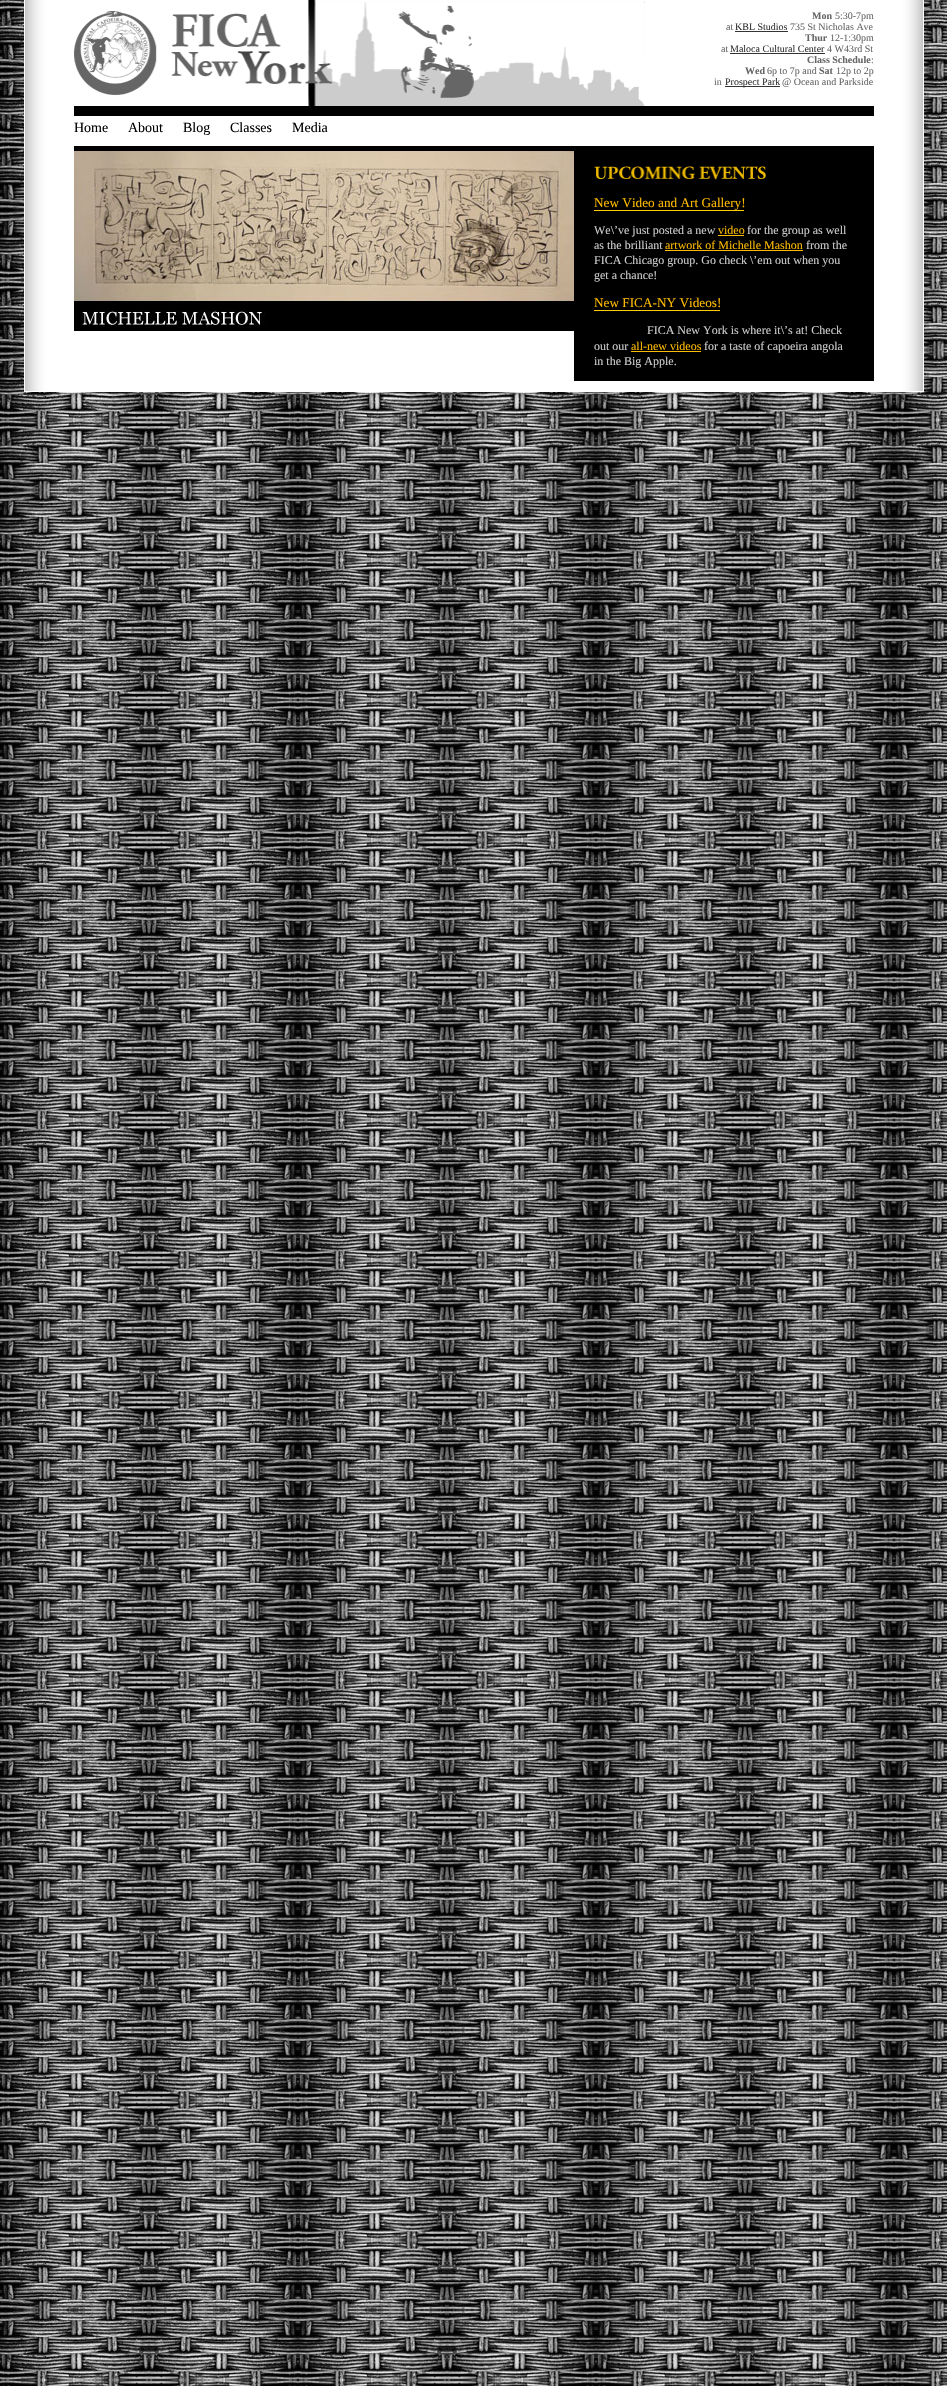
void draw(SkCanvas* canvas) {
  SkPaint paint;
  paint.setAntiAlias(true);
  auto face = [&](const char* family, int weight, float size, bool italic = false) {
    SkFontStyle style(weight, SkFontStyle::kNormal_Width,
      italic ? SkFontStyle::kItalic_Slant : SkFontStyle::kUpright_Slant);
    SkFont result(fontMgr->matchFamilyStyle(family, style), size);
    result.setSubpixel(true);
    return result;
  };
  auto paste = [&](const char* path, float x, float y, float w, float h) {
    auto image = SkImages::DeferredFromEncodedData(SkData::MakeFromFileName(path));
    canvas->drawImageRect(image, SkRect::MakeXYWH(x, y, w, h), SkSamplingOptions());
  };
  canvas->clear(0xffffffff);
  paste("img/1.png", 0, 0, 947, 2386);
  paint.setColor(0xffffffff);
  canvas->drawRect(SkRect::MakeXYWH(24, 0, 900, 392), paint);
  paste("img/2.png", 25, 0, 898, 391);
  paste("img/3.png", 74, 0, 571, 106);
  {
    const struct { float x, y, w, h; SkColor color; } items[] = {
      {74, 106, 800, 10, 0xff000000},
      {735, 31, 53, 1, 0xff333333},
      {730, 53, 95, 1, 0xff333333},
      {725, 86, 55, 1, 0xff333333},
      {74, 146, 800, 5, 0xff000000},
      {74, 325, 500, 6, 0xff000000},
    };
    for (auto [x, y, w, h, color] : items) {
      paint.setColor(color);
      canvas->drawRect(SkRect::MakeXYWH(x, y, w, h), paint);
    }
  }
  paste("img/4.png", 74, 151, 500, 174);
  canvas->drawRect(SkRect::MakeXYWH(574, 151, 300, 230), paint);
  paste("img/5.png", 594, 166, 172, 14);
  {
    const struct { float x, y, w, h; SkColor color; } items[] = {
      {594, 210, 150, 1, 0xffffcc00},
      {718, 235, 26, 1, 0xffffbb00},
      {665, 250, 138, 1, 0xffffbb00},
      {594, 310, 126, 1, 0xffffcc00},
      {631, 351, 70, 1, 0xffffbb00},
    };
    for (auto [x, y, w, h, color] : items) {
      paint.setColor(color);
      canvas->drawRect(SkRect::MakeXYWH(x, y, w, h), paint);
    }
  }
  auto f0 = face("Liberation Serif", 700, 10);
  paint.setColor(0xff666666);
  canvas->drawString("Mon", 812, 19, f0, paint);
  auto f1 = face("Liberation Serif", 400, 10);
  canvas->drawString("5:30-7pm", 835, 19, f1, paint);
  canvas->drawString("at", 726, 30, f1, paint);
  paint.setColor(0xff333333);
  canvas->drawString("KBL Studios", 735, 30, f1, paint);
  paint.setColor(0xff666666);
  canvas->drawString("735 St Nicholas Ave", 790, 30, f1, paint);
  canvas->drawString("Thur", 805, 41, f0, paint);
  canvas->drawString("12-1:30pm", 830, 41, f1, paint);
  canvas->drawString("at", 721, 52, f1, paint);
  paint.setColor(0xff333333);
  canvas->drawString("Maloca Cultural Center", 730, 52, f1, paint);
  paint.setColor(0xff666666);
  canvas->drawString("4 W43rd St", 827, 52, f1, paint);
  canvas->drawString("Class Schedule", 807, 63, f0, paint);
  canvas->drawString(":", 871, 63, f1, paint);
  canvas->drawString("Wed", 745, 74, f0, paint);
  canvas->drawString("6p to 7p and", 767, 74, f1, paint);
  canvas->drawString("Sat", 819, 74, f0, paint);
  canvas->drawString("12p to 2p", 836, 74, f1, paint);
  canvas->drawString("in", 714, 85, f1, paint);
  paint.setColor(0xff333333);
  canvas->drawString("Prospect Park", 725, 85, f1, paint);
  paint.setColor(0xff666666);
  canvas->drawString("@ Ocean and Parkside", 782, 85, f1, paint);
  auto f2 = face("Liberation Serif", 400, 14);
  paint.setColor(0xff000000);
  {
    const struct { const char* s; float x, y; } items[] = {
      {"Home", 74, 132},
      {"About", 128, 132},
      {"Blog", 183, 132},
      {"Classes", 230, 132},
      {"Media", 292, 132},
    };
    for (auto [s, x, y] : items) {
      canvas->drawString(s, x, y, f2, paint);
    }
  }
  auto f3 = face("Liberation Serif", 400, 13.25f);
  paint.setColor(0xffffbb00);
  canvas->drawString("New Video and Art Gallery!", 594, 207, f3, paint);
  auto f4 = face("Liberation Serif", 400, 12);
  paint.setColor(0xffcccccc);
  canvas->drawString("We\\’ve just posted a new", 594, 234, f4, paint);
  paint.setColor(0xffffbb00);
  canvas->drawString("video", 718, 234, f4, paint);
  paint.setColor(0xffcccccc);
  canvas->drawString("for the group as well", 747, 234, f4, paint);
  canvas->drawString("as the brilliant", 594, 249, f4, paint);
  paint.setColor(0xffffbb00);
  canvas->drawString("artwork of Michelle Mashon", 665, 249, f4, paint);
  paint.setColor(0xffcccccc);
  {
    const struct { const char* s; float x, y; } items[] = {
      {"from the", 806, 249},
      {"FICA Chicago group. Go check \\’em out when you", 594, 264},
      {"get a chance!", 594, 279},
    };
    for (auto [s, x, y] : items) {
      canvas->drawString(s, x, y, f4, paint);
    }
  }
  paint.setColor(0xffffbb00);
  canvas->drawString("New FICA-NY Videos!", 594, 307, f3, paint);
  paint.setColor(0xffcccccc);
  canvas->drawString("FICA New York is where it\\’s at! Check", 647, 334, f4, paint);
  canvas->drawString("out our", 594, 350, f4, paint);
  paint.setColor(0xffffbb00);
  canvas->drawString("all-new videos", 631, 350, f4, paint);
  paint.setColor(0xffcccccc);
  canvas->drawString("for a taste of capoeira angola", 704, 350, f4, paint);
  canvas->drawString("in the Big Apple.", 594, 365, f4, paint);
}
